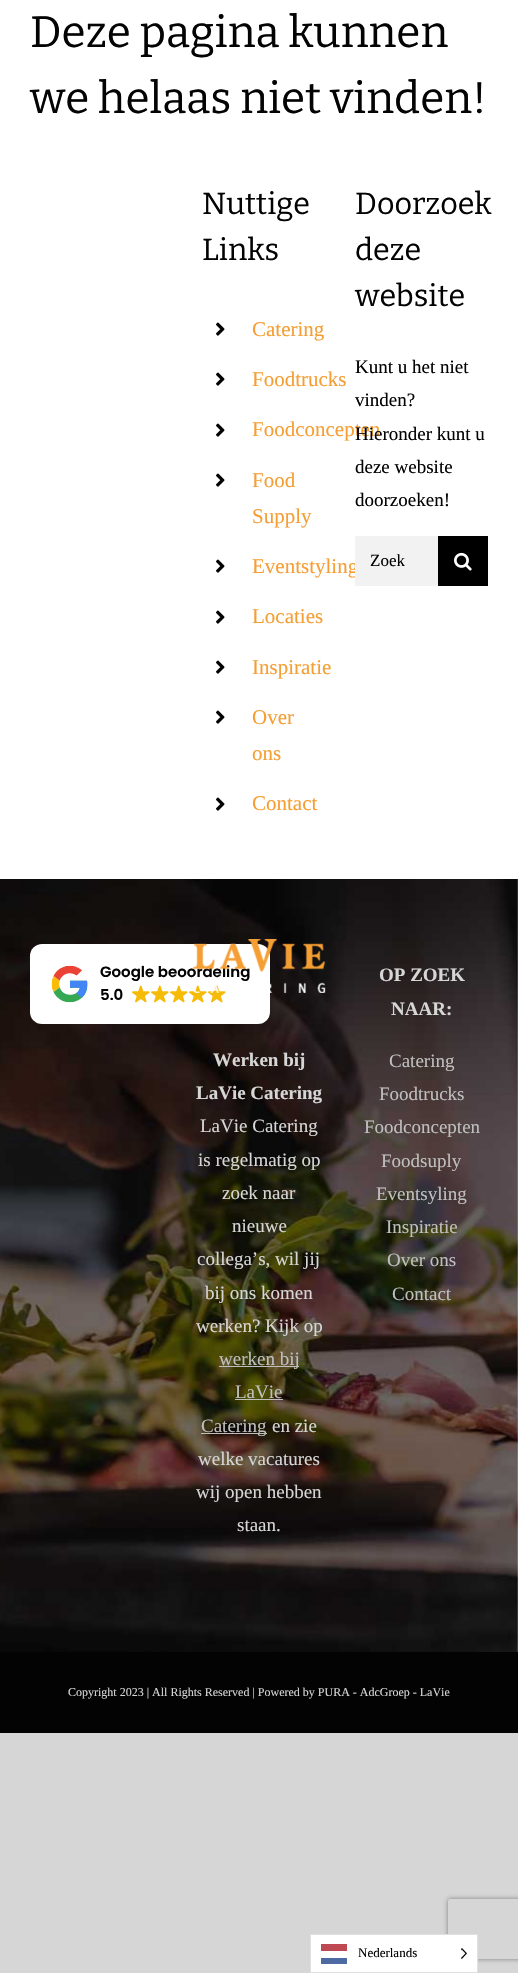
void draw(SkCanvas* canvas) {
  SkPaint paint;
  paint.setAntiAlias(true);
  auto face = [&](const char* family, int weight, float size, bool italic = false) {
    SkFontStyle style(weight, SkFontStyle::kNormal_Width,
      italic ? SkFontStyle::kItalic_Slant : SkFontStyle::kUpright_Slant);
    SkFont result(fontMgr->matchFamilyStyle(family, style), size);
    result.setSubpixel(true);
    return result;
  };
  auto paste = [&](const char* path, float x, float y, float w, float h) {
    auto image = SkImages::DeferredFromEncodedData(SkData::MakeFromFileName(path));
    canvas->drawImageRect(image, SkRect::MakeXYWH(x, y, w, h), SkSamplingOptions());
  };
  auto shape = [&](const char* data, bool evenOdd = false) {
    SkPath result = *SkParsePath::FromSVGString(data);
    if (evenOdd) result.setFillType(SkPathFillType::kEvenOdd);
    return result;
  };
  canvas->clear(0xffd7d6d6);
  paint.setColor(0xffffffff);
  canvas->drawRect(SkRect::MakeXYWH(0, 0, 518, 1652), paint);
  paste("img/1.png", 216, 322, 9, 14);
  paste("img/1.png", 216, 372, 9, 14);
  paste("img/1.png", 216, 423, 9, 14);
  paste("img/1.png", 216, 473, 9, 14);
  paste("img/1.png", 216, 559, 9, 14);
  paste("img/1.png", 216, 610, 9, 14);
  paste("img/1.png", 216, 660, 9, 14);
  paste("img/1.png", 216, 710, 9, 14);
  paste("img/1.png", 216, 797, 9, 14);
  paint.setColor(0xff000000);
  canvas->drawRect(SkRect::MakeXYWH(438, 536, 50, 50), paint);
  paste("img/2.png", 454, 552, 18, 19);
  paste("img/3.png", 0, 879, 518, 773);
  paint.setColor(0xffffffff);
  canvas->drawRoundRect(SkRect::MakeXYWH(30, 944, 240, 80), 12, 12, paint);
  paste("img/4.png", 51, 965, 37, 38);
  paste("img/5.png", 132, 985, 18, 18);
  paste("img/5.png", 151, 985, 18, 18);
  paste("img/5.png", 170, 985, 18, 18);
  paste("img/5.png", 189, 985, 18, 18);
  paste("img/5.png", 208, 985, 18, 18);
  {
    const struct { float x, y, w, h; SkColor color; } items[] = {
      {219, 1366, 80, 1, 0xffbfbfbf},
      {235, 1399, 48, 1, 0xffbfbfbf},
      {201, 1433, 66, 1, 0xffbfbfbf},
      {0, 1652, 518, 81, 0xff030303},
    };
    for (auto [x, y, w, h, color] : items) {
      paint.setColor(color);
      canvas->drawRect(SkRect::MakeXYWH(x, y, w, h), paint);
    }
  }
  canvas->save();
  canvas->clipPath(shape("M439 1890H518V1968H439ZM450 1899H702C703 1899 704 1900 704 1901V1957C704 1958 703 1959 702 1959H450C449 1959 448 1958 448 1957V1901C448 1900 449 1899 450 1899Z", true), true);
  paint.setColor(0xff808080);
  paint.setMaskFilter(SkMaskFilter::MakeBlur(kNormal_SkBlurStyle, 2.5f));
  canvas->drawRoundRect(SkRect::MakeXYWH(448, 1899, 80, 60), 2, 2, paint);
  paint.setMaskFilter(nullptr);
  canvas->restore();
  paint.setColor(0xffffffff);
  canvas->drawRect(SkRect::MakeXYWH(310.5f, 1934.5f, 167, 38), paint);
  paint.setStroke(true);
  paint.setStrokeWidth(1);
  paint.setColor(0xffe0e0e0);
  canvas->drawRect(SkRect::MakeXYWH(310.5f, 1934.5f, 167, 38), paint);
  paint.setStroke(false);
  paint.setColor(0xffbe4953);
  canvas->drawRect(SkRect::MakeXYWH(321, 1944, 26, 7), paint);
  paint.setColor(0xff4d6ba2);
  canvas->drawRect(SkRect::MakeXYWH(321, 1958, 26, 6), paint);
  paste("img/7.png", 461, 1948, 6, 11);
  auto f0 = face("Bitter", 400, 44);
  paint.setColor(0xff030303);
  canvas->drawString("Deze pagina kunnen", 30, 47, f0, paint);
  canvas->drawString("we helaas niet vinden!", 30, 113, f0, paint);
  auto f1 = face("Bitter", 400, 30.5f);
  canvas->drawString("Nuttige", 202, 214, f1, paint);
  canvas->drawString("Links", 202, 260, f1, paint);
  auto f2 = face("Liberation Serif", 400, 21);
  paint.setColor(0xfff59e33);
  {
    const struct { const char* s; float x, y; } items[] = {
      {"Catering", 252, 336},
      {"Foodtrucks", 252, 386},
      {"Foodconcepten", 252, 436},
      {"Food", 252, 487},
      {"Supply", 252, 523},
      {"Eventstyling", 252, 573},
      {"Locaties", 252, 623},
      {"Inspiratie", 252, 674},
      {"Over", 252, 724},
      {"ons", 252, 760},
      {"Contact", 252, 810},
    };
    for (auto [s, x, y] : items) {
      canvas->drawString(s, x, y, f2, paint);
    }
  }
  paint.setColor(0xff030303);
  {
    const struct { const char* s; float x, y; } items[] = {
      {"Doorzoek", 355, 214},
      {"deze", 355, 260},
      {"website", 355, 306},
    };
    for (auto [s, x, y] : items) {
      canvas->drawString(s, x, y, f1, paint);
    }
  }
  auto f3 = face("Liberation Serif", 400, 19);
  {
    const struct { const char* s; float x, y; } items[] = {
      {"Kunt u het niet", 355, 373},
      {"vinden?", 355, 406},
      {"Hieronder kunt u", 355, 440},
      {"deze website", 355, 473},
      {"doorzoeken!", 355, 506},
    };
    for (auto [s, x, y] : items) {
      canvas->drawString(s, x, y, f3, paint);
    }
  }
  paint.setColor(0xfff2f2f2);
  canvas->drawRect(SkRect::MakeXYWH(355, 536, 83, 50), paint);
  auto f4 = face("Liberation Serif", 400, 17);
  paint.setColor(0xff030303);
  canvas->drawString("Zoek", 370, 566, f4, paint);
  auto f5 = face("Poppins", 600, 15);
  canvas->drawString("Google beoordeling", 100, 977, f5, paint);
  canvas->drawString("5.0", 100, 1000, f5, paint);
  paste("img/6.png", 192, 939, 134, 54);
  auto f6 = face("Liberation Serif", 700, 19);
  paint.setColor(0xffd6d6d6);
  canvas->drawString("Werken bij", 213, 1066, f6, paint);
  canvas->drawString("LaVie Catering", 196, 1099, f6, paint);
  {
    const struct { const char* s; float x, y; } items[] = {
      {"LaVie Catering", 200, 1132},
      {"is regelmatig op", 198, 1166},
      {"zoek naar", 222, 1199},
      {"nieuwe", 232, 1232},
      {"collega’s, wil jij", 197, 1265},
      {"bij ons komen", 205, 1299},
      {"werken? Kijk op", 196, 1332},
    };
    for (auto [s, x, y] : items) {
      canvas->drawString(s, x, y, f3, paint);
    }
  }
  paint.setColor(0xffbfbfbf);
  {
    const struct { const char* s; float x, y; } items[] = {
      {"werken bij", 219, 1365},
      {"LaVie", 235, 1398},
      {"Catering", 201, 1432},
    };
    for (auto [s, x, y] : items) {
      canvas->drawString(s, x, y, f3, paint);
    }
  }
  paint.setColor(0xffd6d6d6);
  {
    const struct { const char* s; float x, y; } items[] = {
      {"en zie", 272, 1432},
      {"welke vacatures", 198, 1465},
      {"wij open hebben", 196, 1498},
      {"staan.", 237, 1531},
    };
    for (auto [s, x, y] : items) {
      canvas->drawString(s, x, y, f3, paint);
    }
  }
  canvas->drawString("OP ZOEK", 379, 981, f6, paint);
  canvas->drawString("NAAR:", 391, 1015, f6, paint);
  paint.setColor(0xffbfbfbf);
  {
    const struct { const char* s; float x, y; } items[] = {
      {"Catering", 389, 1067},
      {"Foodtrucks", 379, 1100},
      {"Foodconcepten", 364, 1133},
      {"Foodsuply", 381, 1167},
      {"Eventsyling", 376, 1200},
      {"Inspiratie", 386, 1233},
      {"Over ons", 387, 1266},
      {"Contact", 392, 1300},
    };
    for (auto [s, x, y] : items) {
      canvas->drawString(s, x, y, f3, paint);
    }
  }
  auto f7 = face("Liberation Serif", 400, 12);
  paint.setColor(0xffd6d6d6);
  canvas->drawString("Copyright 2023 | All Rights Reserved | Powered by PURA - AdcGroep - LaVie", 68, 1696, f7, paint);
  auto f8 = face("Liberation Serif", 400, 13);
  paint.setColor(0xff030303);
  canvas->drawString("Nederlands", 358, 1957, f8, paint);
}
